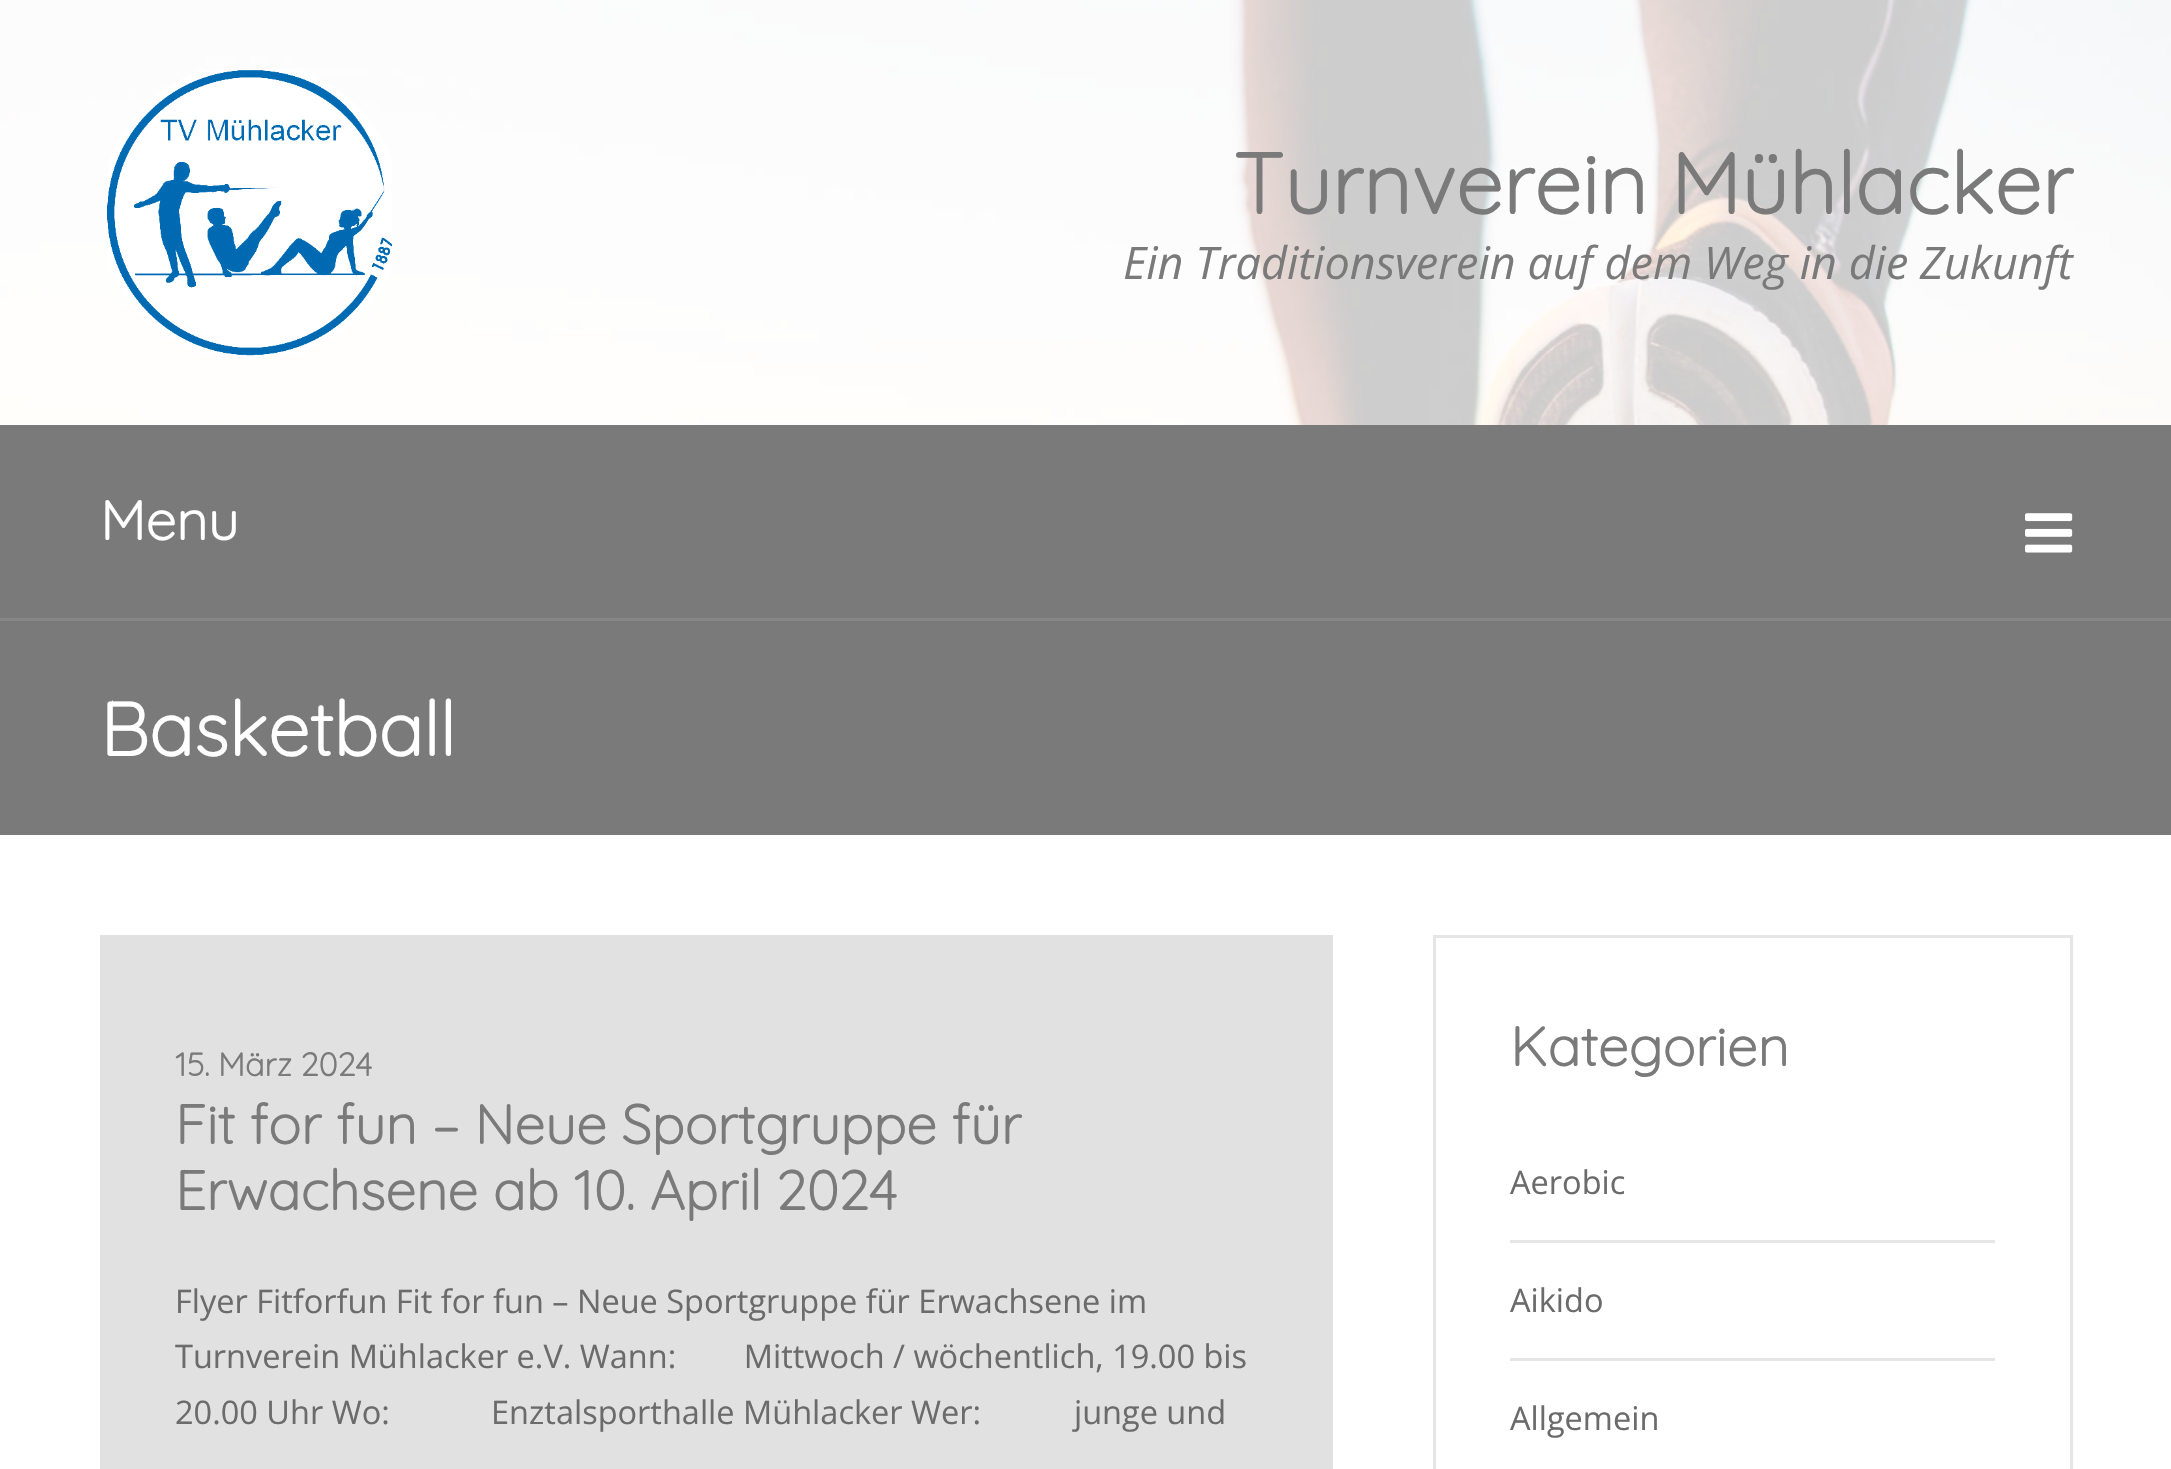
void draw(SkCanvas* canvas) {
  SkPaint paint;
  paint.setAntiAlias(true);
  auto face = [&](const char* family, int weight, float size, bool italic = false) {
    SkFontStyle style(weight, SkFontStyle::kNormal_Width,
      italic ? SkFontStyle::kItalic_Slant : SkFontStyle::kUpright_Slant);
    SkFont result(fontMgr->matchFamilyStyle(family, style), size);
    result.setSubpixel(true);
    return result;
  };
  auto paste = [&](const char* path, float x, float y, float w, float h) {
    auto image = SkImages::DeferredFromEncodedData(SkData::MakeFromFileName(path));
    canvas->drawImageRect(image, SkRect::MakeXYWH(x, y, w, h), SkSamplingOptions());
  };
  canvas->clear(0xffffffff);
  paste("img/1.png", 0, 0, 2171, 425);
  paint.setColor(0xccffffff);
  canvas->drawRect(SkRect::MakeXYWH(0, 0, 2171, 425), paint);
  paste("img/2.png", 107, 70, 285, 286);
  paint.setColor(0xff7a7a7a);
  canvas->drawRect(SkRect::MakeXYWH(0, 425, 2171, 193), paint);
  paste("img/3.png", 2025, 513, 48, 40);
  {
    const struct { float x, y, w, h; SkColor color; } items[] = {
      {0, 621, 2171, 214, 0xff7a7a7a},
      {0, 618, 2171, 3, 0xff878787},
      {100, 935, 1233, 534, 0xffe1e1e1},
    };
    for (auto [x, y, w, h, color] : items) {
      paint.setColor(color);
      canvas->drawRect(SkRect::MakeXYWH(x, y, w, h), paint);
    }
  }
  paint.setStroke(true);
  paint.setStrokeWidth(3);
  paint.setColor(0xffe6e6e6);
  canvas->drawRect(SkRect::MakeXYWH(1434.5f, 936.5f, 637, 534), paint);
  paint.setStroke(false);
  canvas->drawRect(SkRect::MakeXYWH(1510, 1240, 485, 3), paint);
  canvas->drawRect(SkRect::MakeXYWH(1510, 1358, 485, 3), paint);
  auto f0 = face("Quicksand", 700, 85);
  paint.setColor(0xff7a7a7a);
  canvas->drawString("Turnverein Mühlacker", 1233, 214, f0, paint);
  auto f1 = face("Open Sans", 400, 45, true);
  canvas->drawString("Ein Traditionsverein auf dem Weg in die Zukunft", 1123, 279, f1, paint);
  auto f2 = face("Quicksand", 700, 55);
  paint.setColor(0xffffffff);
  canvas->drawString("Menu", 100, 540, f2, paint);
  auto f3 = face("Quicksand", 700, 75);
  canvas->drawString("Basketball", 100, 756, f3, paint);
  auto f4 = face("Quicksand", 700, 32.5f);
  paint.setColor(0xff7a7a7a);
  canvas->drawString("15. März 2024", 175, 1076, f4, paint);
  canvas->drawString("Fit for fun – Neue Sportgruppe für", 175, 1144, f2, paint);
  canvas->drawString("Erwachsene ab 10. April 2024", 175, 1210, f2, paint);
  auto f5 = face("Open Sans", 400, 32.5f);
  paint.setColor(0xff6b6b6b);
  {
    const struct { const char* s; float x, y; } items[] = {
      {"Flyer Fitforfun Fit for fun – Neue Sportgruppe für Erwachsene im", 175, 1313},
      {"Turnverein Mühlacker e.V. Wann:        Mittwoch / wöchentlich, 19.00 bis", 175, 1368},
      {"20.00 Uhr Wo:            Enztalsporthalle Mühlacker Wer:           junge und", 175, 1424},
    };
    for (auto [s, x, y] : items) {
      canvas->drawString(s, x, y, f5, paint);
    }
  }
  paint.setColor(0xff7a7a7a);
  canvas->drawString("Kategorien", 1510, 1066, f2, paint);
  paint.setColor(0xff6b6b6b);
  {
    const struct { const char* s; float x, y; } items[] = {
      {"Aerobic", 1510, 1194},
      {"Aikido", 1510, 1312},
      {"Allgemein", 1510, 1430},
    };
    for (auto [s, x, y] : items) {
      canvas->drawString(s, x, y, f5, paint);
    }
  }
}
